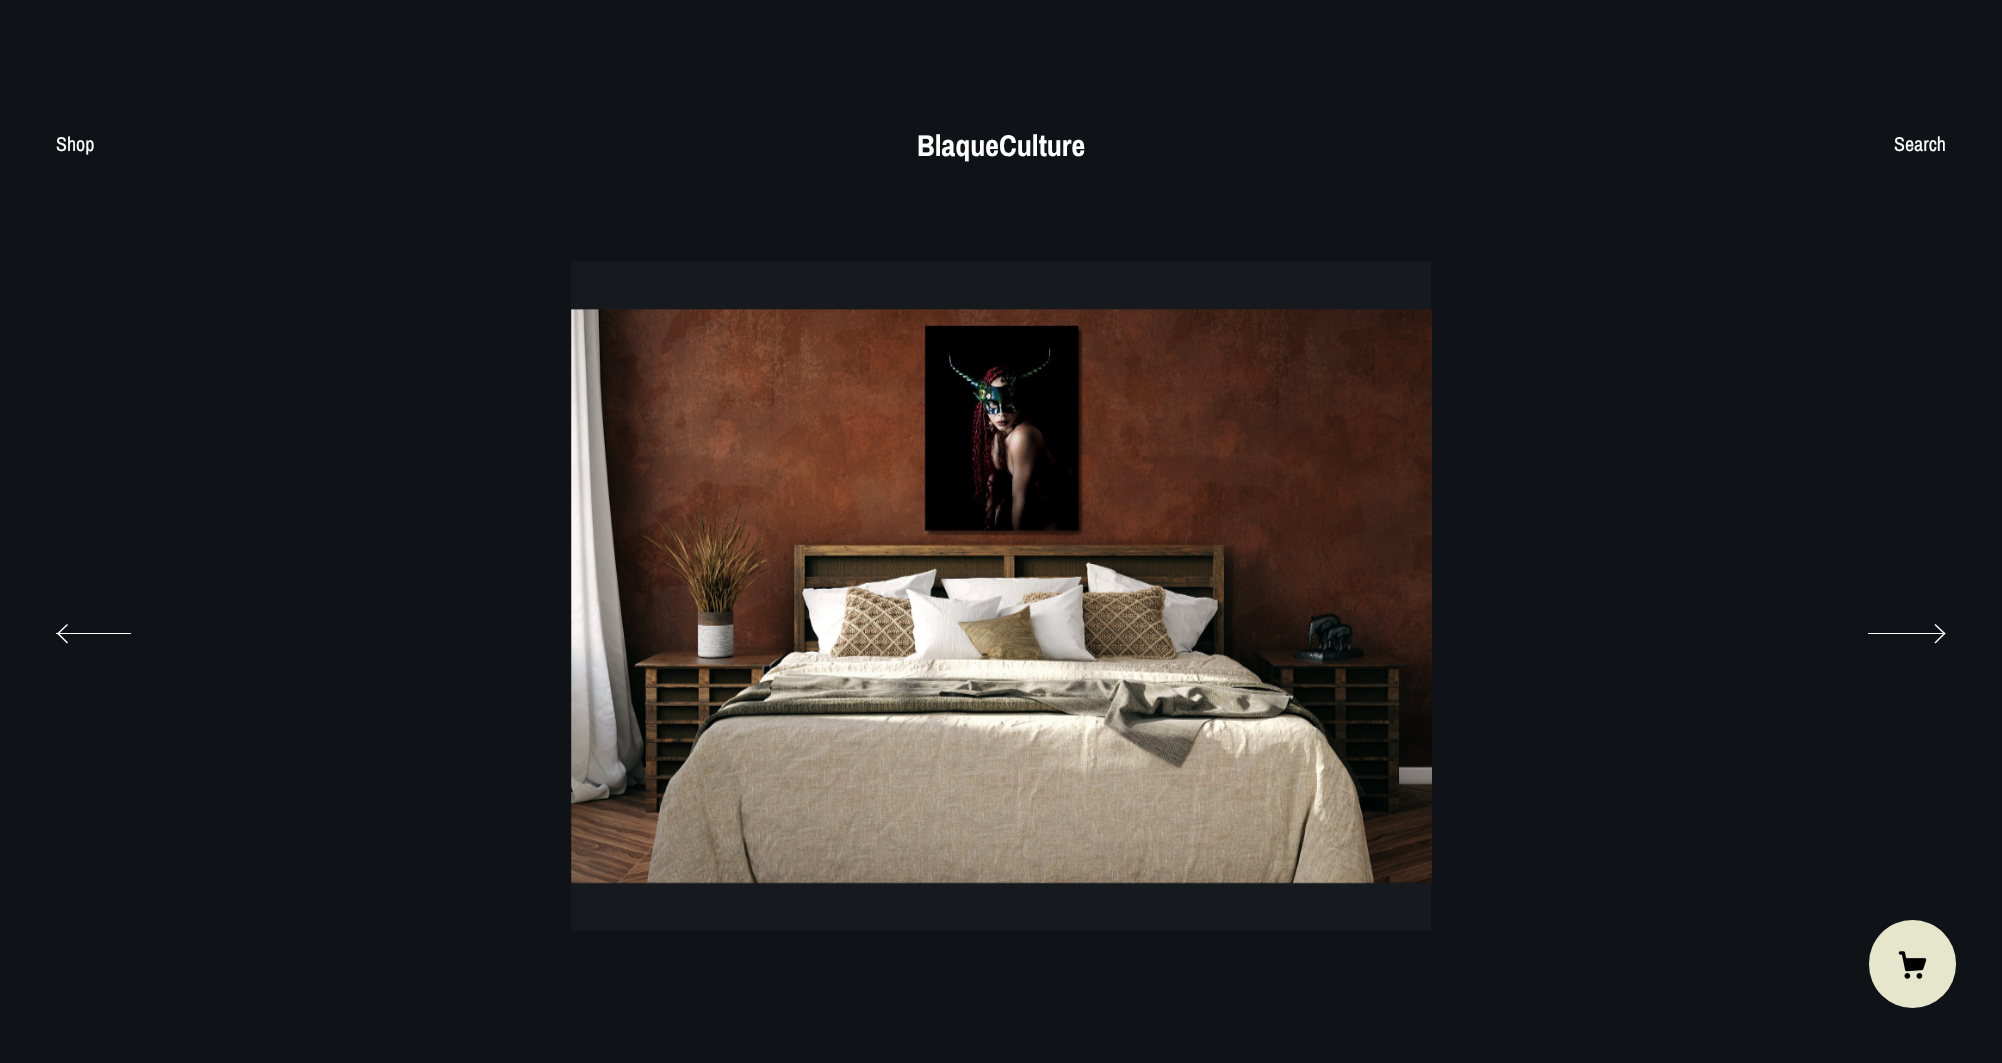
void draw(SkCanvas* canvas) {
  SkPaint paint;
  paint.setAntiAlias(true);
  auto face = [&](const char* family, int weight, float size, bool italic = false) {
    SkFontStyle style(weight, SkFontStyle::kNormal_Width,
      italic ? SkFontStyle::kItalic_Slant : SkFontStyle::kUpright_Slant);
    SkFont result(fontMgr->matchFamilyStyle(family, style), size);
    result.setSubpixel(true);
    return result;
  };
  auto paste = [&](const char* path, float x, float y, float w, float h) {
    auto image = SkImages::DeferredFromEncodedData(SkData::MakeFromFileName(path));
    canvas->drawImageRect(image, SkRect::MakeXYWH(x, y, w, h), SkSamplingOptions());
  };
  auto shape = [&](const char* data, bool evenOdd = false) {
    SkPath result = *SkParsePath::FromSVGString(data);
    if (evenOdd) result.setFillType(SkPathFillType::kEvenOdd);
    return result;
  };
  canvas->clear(0xff0f1217);
  paint.setColor(0xff16191e);
  canvas->drawRect(SkRect::MakeXYWH(571, 261, 860, 670), paint);
  paste("img/1.png", 571, 309, 861, 575);
  paint.setColor(0xffffffff);
  canvas->drawPath(shape("M68 642.5L67 643.5L57 633.5L58 632.5Z"), paint);
  canvas->drawPath(shape("M68 625L58 634.5L57 633.5L67 624Z"), paint);
  canvas->drawRect(SkRect::MakeXYWH(56, 633, 75, 1), paint);
  canvas->drawPath(shape("M1934.5 625L1935.5 624L1945.5 633.5L1944.5 634.5Z"), paint);
  canvas->drawPath(shape("M1934.5 642.5L1944.5 632.5L1945.5 633.5L1935.5 643.5Z"), paint);
  canvas->drawRect(SkRect::MakeXYWH(1868, 633, 75, 1), paint);
  paint.setColor(0xffe5e6cb);
  canvas->drawRoundRect(SkRect::MakeXYWH(1869, 920, 87, 88), 43.5f, 43.5f, paint);
  paste("img/2.png", 1898, 951, 29, 28);
  auto f0 = face("Archivo Narrow", 700, 30);
  paint.setColor(0xffffffff);
  canvas->drawString("BlaqueCulture", 917, 156, f0, paint);
  auto f1 = face("Archivo Narrow", 400, 20);
  canvas->drawString("Shop", 56, 151, f1, paint);
  canvas->drawString("Search", 1894, 151, f1, paint);
}
